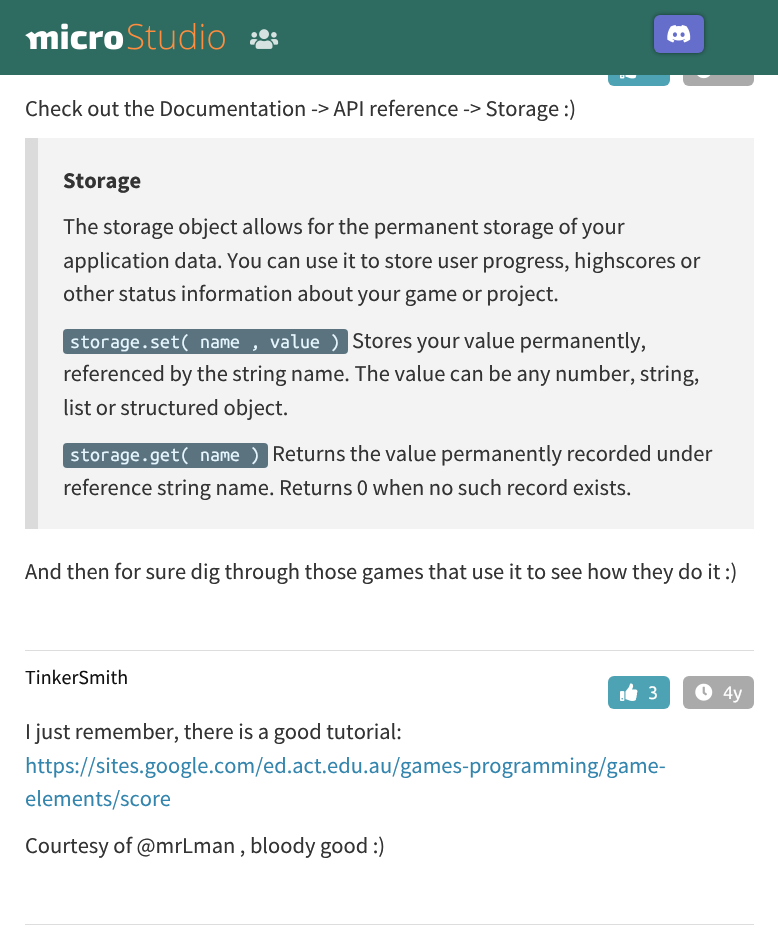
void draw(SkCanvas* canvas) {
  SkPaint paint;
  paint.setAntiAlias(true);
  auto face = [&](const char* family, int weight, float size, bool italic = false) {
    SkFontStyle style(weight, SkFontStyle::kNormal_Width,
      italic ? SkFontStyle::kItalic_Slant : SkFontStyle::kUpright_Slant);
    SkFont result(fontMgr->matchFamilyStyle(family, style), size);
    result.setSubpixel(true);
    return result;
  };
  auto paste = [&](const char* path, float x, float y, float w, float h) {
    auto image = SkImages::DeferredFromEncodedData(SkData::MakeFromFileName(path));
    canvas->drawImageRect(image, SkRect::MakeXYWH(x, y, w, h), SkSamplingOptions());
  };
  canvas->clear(0xffffffff);
  paint.setColor(0xff4da2b3);
  canvas->drawRoundRect(SkRect::MakeXYWH(608, 54, 62, 32), 6, 6, paint);
  paint.setColor(0xffaaaaaa);
  canvas->drawRoundRect(SkRect::MakeXYWH(683, 54, 71, 32), 6, 6, paint);
  paint.setColor(0xff2e6b61);
  canvas->drawRect(SkRect::MakeXYWH(0, 0, 778, 75), paint);
  paste("img/1.png", 25, 23, 200, 27);
  paste("img/2.png", 250, 29, 29, 20);
  paint.setColor(0x80000000);
  paint.setMaskFilter(SkMaskFilter::MakeBlur(kNormal_SkBlurStyle, 2));
  canvas->drawRoundRect(SkRect::MakeXYWH(654, 15, 50, 38), 6, 6, paint);
  paint.setMaskFilter(nullptr);
  paint.setColor(0xff666ecc);
  canvas->drawRoundRect(SkRect::MakeXYWH(654, 15, 50, 38), 6, 6, paint);
  paste("img/3.png", 667, 25, 24, 18);
  paint.setColor(0xffdddddd);
  canvas->drawRect(SkRect::MakeXYWH(25, 650, 729, 1), paint);
  paste("img/4.png", 620, 75, 17, 4);
  paste("img/5.png", 697, 75, 14, 4);
  paint.setColor(0xfff3f3f3);
  canvas->drawRect(SkRect::MakeXYWH(38, 138, 716, 391), paint);
  paint.setColor(0xffdbdbdb);
  canvas->drawRect(SkRect::MakeXYWH(25, 138, 13, 391), paint);
  paint.setColor(0xff5b737f);
  canvas->drawRoundRect(SkRect::MakeXYWH(63, 329, 285, 25), 4, 4, paint);
  canvas->drawRoundRect(SkRect::MakeXYWH(63, 443, 205, 25), 4, 4, paint);
  paint.setColor(0xffdddddd);
  canvas->drawRect(SkRect::MakeXYWH(25, 924, 729, 1), paint);
  paint.setColor(0xff4da2b3);
  canvas->drawRoundRect(SkRect::MakeXYWH(608, 676, 62, 33), 6, 6, paint);
  paste("img/6.png", 620, 683, 18, 18);
  paint.setColor(0xffaaaaaa);
  canvas->drawRoundRect(SkRect::MakeXYWH(683, 676, 71, 33), 6, 6, paint);
  paste("img/7.png", 695, 683, 18, 18);
  auto f0 = face("Source Sans Pro", 400, 22.5f);
  paint.setColor(0xff333333);
  canvas->drawString("Check out the Documentation -> API reference -> Storage :)", 25, 116, f0, paint);
  auto f1 = face("Source Sans Pro", 700, 22.5f);
  canvas->drawString("Storage", 63, 188, f1, paint);
  {
    const struct { const char* s; float x, y; } items[] = {
      {"The storage object allows for the permanent storage of your", 63, 234},
      {"application data. You can use it to store user progress, highscores or", 63, 268},
      {"other status information about your game or project.", 63, 301},
    };
    for (auto [s, x, y] : items) {
      canvas->drawString(s, x, y, f0, paint);
    }
  }
  auto f2 = face("Ubuntu Mono", 400, 20);
  paint.setColor(0xffe6f7ff);
  canvas->drawString("storage.set( name , value )", 70, 348, f2, paint);
  paint.setColor(0xff333333);
  {
    const struct { const char* s; float x, y; } items[] = {
      {"Stores your value permanently,", 352, 348},
      {"referenced by the string name. The value can be any number, string,", 63, 381},
      {"list or structured object.", 63, 415},
    };
    for (auto [s, x, y] : items) {
      canvas->drawString(s, x, y, f0, paint);
    }
  }
  paint.setColor(0xffe6f7ff);
  canvas->drawString("storage.get( name )", 70, 461, f2, paint);
  paint.setColor(0xff333333);
  {
    const struct { const char* s; float x, y; } items[] = {
      {"Returns the value permanently recorded under", 272, 461},
      {"reference string name. Returns 0 when no such record exists.", 63, 495},
      {"And then for sure dig through those games that use it to see how they do it :)", 25, 579},
    };
    for (auto [s, x, y] : items) {
      canvas->drawString(s, x, y, f0, paint);
    }
  }
  auto f3 = face("Source Sans Pro", 400, 20);
  paint.setColor(0xff111111);
  canvas->drawString("TinkerSmith", 25, 684, f3, paint);
  auto f4 = face("Ubuntu", 400, 18);
  paint.setColor(0xffffffff);
  canvas->drawString("3", 648, 699, f4, paint);
  canvas->drawString("4y", 723, 699, f4, paint);
  paint.setColor(0xff333333);
  canvas->drawString("I just remember, there is a good tutorial:", 25, 739, f0, paint);
  paint.setColor(0xff3385ad);
  canvas->drawString("https://sites.google.com/ed.act.edu.au/games-programming/game-", 25, 773, f0, paint);
  canvas->drawString("elements/score", 25, 806, f0, paint);
  paint.setColor(0xff333333);
  canvas->drawString("Courtesy of @mrLman , bloody good :)", 25, 853, f0, paint);
}
